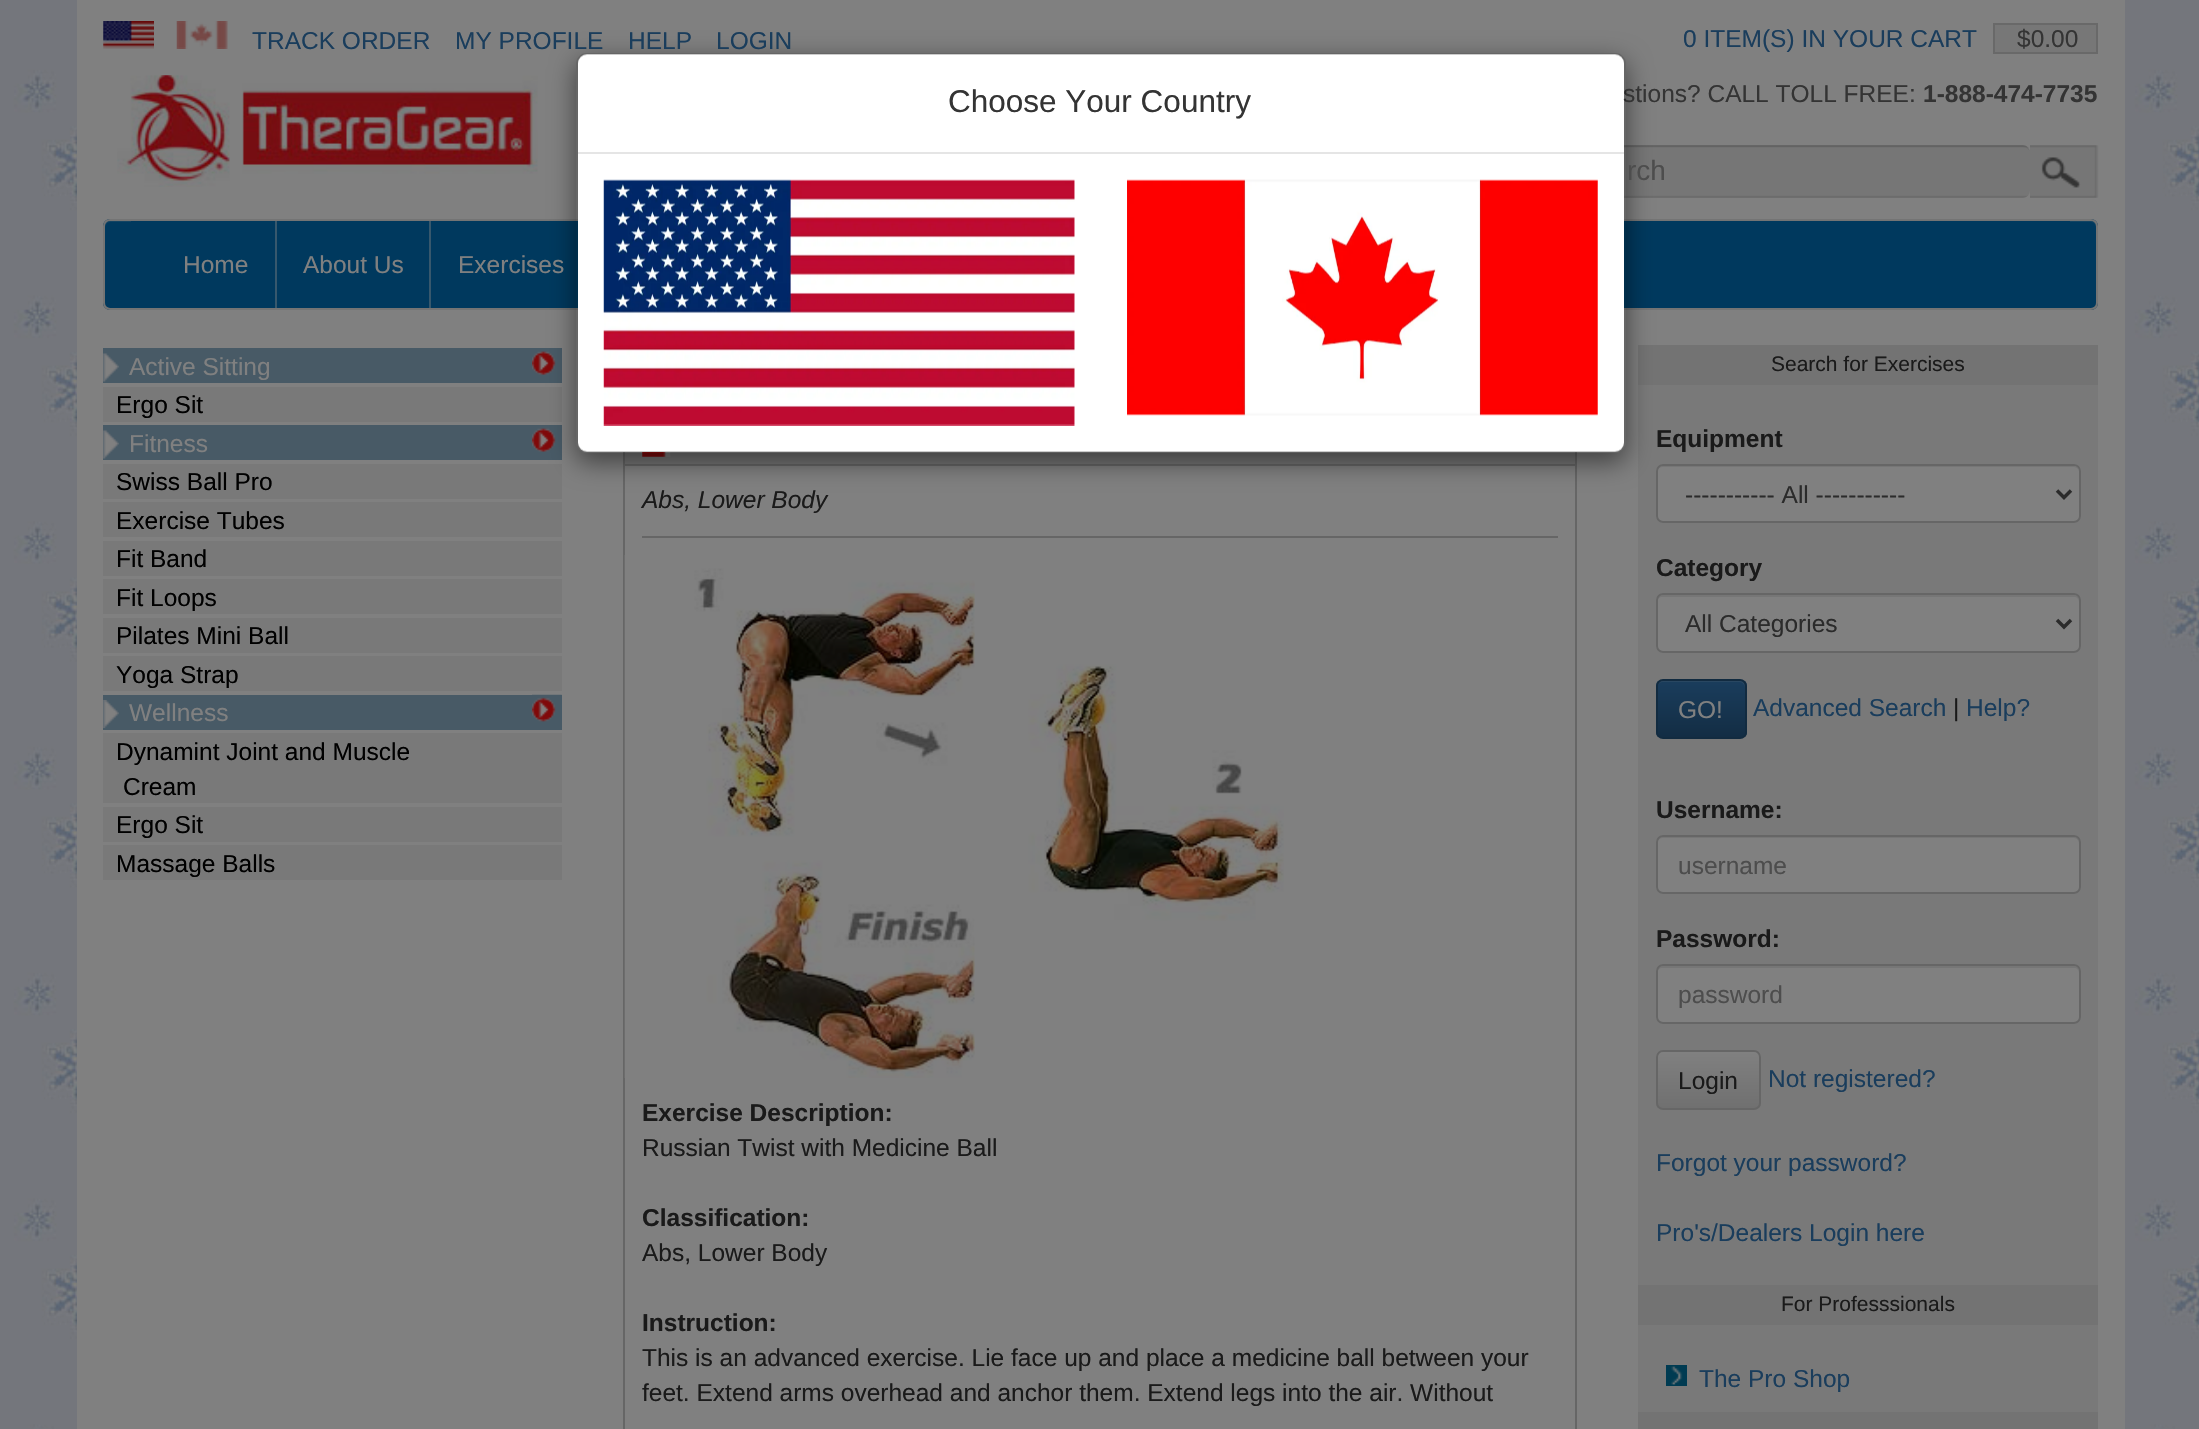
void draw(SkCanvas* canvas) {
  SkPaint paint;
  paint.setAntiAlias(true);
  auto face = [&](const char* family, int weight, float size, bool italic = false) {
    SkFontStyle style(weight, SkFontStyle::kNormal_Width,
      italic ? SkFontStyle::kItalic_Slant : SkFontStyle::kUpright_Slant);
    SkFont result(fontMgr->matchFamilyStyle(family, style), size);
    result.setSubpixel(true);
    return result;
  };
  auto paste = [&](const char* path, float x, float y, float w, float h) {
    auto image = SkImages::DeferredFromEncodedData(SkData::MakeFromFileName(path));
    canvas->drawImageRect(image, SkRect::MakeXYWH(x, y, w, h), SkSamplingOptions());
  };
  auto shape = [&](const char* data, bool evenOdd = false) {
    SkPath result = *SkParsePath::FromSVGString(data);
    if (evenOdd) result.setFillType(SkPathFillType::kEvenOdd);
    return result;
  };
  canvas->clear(0xffffffff);
  paste("img/1.png", 0, 0, 2199, 1429);
  paint.setColor(0xff808080);
  canvas->drawRect(SkRect::MakeXYWH(77, 0, 2048, 1429), paint);
  paste("img/2.png", 103, 21, 51, 28);
  paste("img/3.png", 176, 21, 52, 28);
  paint.setColor(0xff777777);
  canvas->drawRect(SkRect::MakeXYWH(1994, 24, 103, 29), paint);
  paint.setStroke(true);
  paint.setStrokeWidth(2);
  paint.setColor(0xff696969);
  canvas->drawRect(SkRect::MakeXYWH(1994, 24, 103, 29), paint);
  paste("img/6.png", 117, 75, 421, 112);
  paste("img/7.png", 1624, 145, 406, 53);
  paint.setStroke(false);
  paint.setColor(0x12000000);
  canvas->drawPath(shape("M1536 147H2023C2027 147 2030 150 2030 154C2030 150 2028 145 2023 145H1537C1532 145 1530 150 1530 154C1530 150 1533 147 1536 147Z"), paint);
  paint.setColor(0xff00395e);
  canvas->drawRoundRect(SkRect::MakeXYWH(103, 219, 1995, 91), 7, 7, paint);
  paint.setColor(0xff134463);
  canvas->drawPath(shape("M110 222H2091C2094 222 2096 225 2096 228V304V307C2096 306 2097 304 2097 303V226C2097 223 2095 221 2092 221H110C107 221 105 223 105 226V228C105 225 107 222 110 222Z"), paint);
  paint.setStroke(true);
  paint.setColor(0xff747474);
  canvas->drawRoundRect(SkRect::MakeXYWH(104, 220, 1993, 89), 6, 6, paint);
  paint.setStroke(false);
  paint.setColor(0xff00395e);
  canvas->drawRect(SkRect::MakeXYWH(131, 221, 1939, 1), paint);
  paint.setColor(0xff485a66);
  canvas->drawRect(SkRect::MakeXYWH(103, 348, 459, 35), paint);
  paste("img/10.png", 532, 351, 24, 24);
  paint.setColor(0xff797979);
  canvas->drawRect(SkRect::MakeXYWH(103, 387, 459, 35), paint);
  paint.setColor(0xff485a66);
  canvas->drawRect(SkRect::MakeXYWH(103, 425, 459, 35), paint);
  paste("img/10.png", 532, 428, 24, 24);
  paint.setColor(0xff797979);
  canvas->drawRect(SkRect::MakeXYWH(103, 464, 459, 35), paint);
  paint.setStroke(true);
  paint.setColor(0xff666666);
  canvas->drawRect(SkRect::MakeXYWH(624, 416, 952, 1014), paint);
  paint.setStroke(false);
  paint.setColor(0xff777777);
  canvas->drawRect(SkRect::MakeXYWH(625, 452, 950, 12), paint);
  paste("img/13.png", 642, 452, 29, 5);
  {
    const struct { float x, y, w, h; SkColor color; } items[] = {
      {625, 464, 950, 2, 0xff666666},
      {1638, 385, 460, 1027, 0xff797979},
      {1638, 345, 460, 40, 0xff737373},
    };
    for (auto [x, y, w, h, color] : items) {
      paint.setColor(color);
      canvas->drawRect(SkRect::MakeXYWH(x, y, w, h), paint);
    }
  }
  paint.setColor(0xff808080);
  canvas->drawRoundRect(SkRect::MakeXYWH(1656, 464, 425, 59), 7, 7, paint);
  paint.setColor(0xff767676);
  canvas->drawPath(shape("M1662 467H2074C2077 467 2079 470 2079 472C2079 469 2077 466 2074 466H1662C1659 466 1657 469 1657 472C1657 470 1660 467 1662 467Z"), paint);
  paint.setStroke(true);
  paint.setColor(0xff666666);
  canvas->drawRoundRect(SkRect::MakeXYWH(1657, 465, 423, 57), 6, 6, paint);
  canvas->save();
  canvas->clipPath(shape("M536 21H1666V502H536ZM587 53H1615C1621 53 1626 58 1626 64V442C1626 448 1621 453 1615 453H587C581 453 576 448 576 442V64C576 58 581 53 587 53Z", true), true);
  paint.setStroke(false);
  paint.setColor(0x80000000);
  paint.setMaskFilter(SkMaskFilter::MakeBlur(kNormal_SkBlurStyle, 13));
  canvas->drawRoundRect(SkRect::MakeXYWH(576, 61, 1050, 401), 11, 11, paint);
  paint.setMaskFilter(nullptr);
  canvas->restore();
  paint.setColor(0xffffffff);
  canvas->drawRoundRect(SkRect::MakeXYWH(578, 54, 1046, 398), 9, 9, paint);
  paste("img/8.png", 2030, 145, 69, 53);
  paint.setColor(0xff37586d);
  canvas->drawRect(SkRect::MakeXYWH(275, 221, 2, 87), paint);
  canvas->drawRect(SkRect::MakeXYWH(429, 221, 2, 87), paint);
  paste("img/9.png", 103, 353, 16, 29);
  paste("img/9.png", 103, 430, 16, 29);
  {
    const struct { float x, y, w, h; SkColor color; } items[] = {
      {103, 502, 459, 35, 0xff797979},
      {103, 541, 459, 35, 0xff797979},
      {103, 579, 459, 35, 0xff797979},
      {103, 618, 459, 35, 0xff797979},
      {103, 656, 459, 35, 0xff797979},
      {103, 695, 459, 35, 0xff485a66},
    };
    for (auto [x, y, w, h, color] : items) {
      paint.setColor(color);
      canvas->drawRect(SkRect::MakeXYWH(x, y, w, h), paint);
    }
  }
  paste("img/11.png", 103, 700, 16, 28);
  paste("img/12.png", 532, 694, 30, 28);
  {
    const struct { float x, y, w, h; SkColor color; } items[] = {
      {103, 733, 459, 70, 0xff797979},
      {103, 807, 459, 35, 0xff797979},
      {103, 845, 459, 35, 0xff797979},
      {642, 536, 916, 2, 0xff666666},
    };
    for (auto [x, y, w, h, color] : items) {
      paint.setColor(color);
      canvas->drawRect(SkRect::MakeXYWH(x, y, w, h), paint);
    }
  }
  paste("img/14.png", 624, 555, 351, 523);
  paste("img/15.png", 974, 596, 310, 454);
  paint.setStroke(true);
  paint.setStrokeWidth(3.5f);
  paint.setColor(0xff2b2b2b);
  canvas->drawPath(shape("M2057 490.5L2064 497.5L2071 490.5"), paint);
  paint.setStroke(false);
  paint.setColor(0xff808080);
  canvas->drawRoundRect(SkRect::MakeXYWH(1656, 593, 425, 60), 7, 7, paint);
  paint.setColor(0xff767676);
  canvas->drawPath(shape("M1662 597H2074C2077 597 2079 599 2079 602V600C2079 597 2077 595 2074 595H1662C1659 595 1657 597 1657 600V602C1657 599 1660 597 1662 597Z"), paint);
  paint.setStroke(true);
  paint.setStrokeWidth(2);
  paint.setColor(0xff666666);
  canvas->drawRoundRect(SkRect::MakeXYWH(1657, 594, 423, 58), 6, 6, paint);
  paint.setStrokeWidth(3.5f);
  paint.setColor(0xff2b2b2b);
  canvas->drawPath(shape("M2057 620L2064 627L2071 620"), paint);
  canvas->save();
  canvas->clipPath(shape("M1663 679H1740C1744 679 1747 682 1747 686V732C1747 736 1744 739 1740 739H1663C1659 739 1656 736 1656 732V686C1656 682 1659 679 1663 679Z"), true);
  paint.setStroke(false);
  {
    const SkColor colors[] = {0xff1a3d5c, 0xff132d44};
    const float stops[] = {0, 1};
    const SkPoint ends[] = {{1701, 681}, {1701, 737}};
    paint.setShader(SkGradientShader::MakeLinear(ends, colors, stops, 2, SkTileMode::kClamp));
    paint.setAlpha(255);
  }
  canvas->drawRect(SkRect::MakeXYWH(1656, 681, 91, 56), paint);
  canvas->restore();
  paint.setShader(nullptr);
  paint.setColor(0xff294761);
  canvas->drawPath(shape("M1662 682H1740C1742 682 1745 685 1745 688C1745 678 1735 681 1727 681H1675C1667 681 1657 678 1657 688C1657 685 1660 682 1662 682Z"), paint);
  paint.setStroke(true);
  paint.setStrokeWidth(2);
  paint.setColor(0xff122b40);
  canvas->drawRoundRect(SkRect::MakeXYWH(1657, 680, 89, 58), 6, 6, paint);
  paint.setStroke(false);
  paint.setColor(0xff808080);
  canvas->drawRoundRect(SkRect::MakeXYWH(1656, 835, 425, 59), 7, 7, paint);
  paint.setColor(0xff767676);
  canvas->drawPath(shape("M1662 838H2074C2077 838 2079 841 2079 844V842C2079 839 2077 837 2074 837H1662C1659 837 1657 839 1657 842V844C1657 841 1660 838 1662 838Z"), paint);
  paint.setStroke(true);
  paint.setColor(0xff666666);
  canvas->drawRoundRect(SkRect::MakeXYWH(1657, 836, 423, 57), 6, 6, paint);
  paint.setStroke(false);
  paint.setColor(0xff808080);
  canvas->drawRoundRect(SkRect::MakeXYWH(1656, 964, 425, 60), 7, 7, paint);
  paint.setColor(0xff767676);
  canvas->drawPath(shape("M1662 968H2074C2077 968 2079 970 2079 973V971C2079 968 2077 966 2074 966H1662C1659 966 1657 968 1657 971V973C1657 970 1660 968 1662 968Z"), paint);
  paint.setStroke(true);
  paint.setColor(0xff666666);
  canvas->drawRoundRect(SkRect::MakeXYWH(1657, 965, 423, 58), 6, 6, paint);
  canvas->save();
  canvas->clipPath(shape("M1663 1050H1754C1758 1050 1761 1053 1761 1057V1103C1761 1107 1758 1110 1754 1110H1663C1659 1110 1656 1107 1656 1103V1057C1656 1053 1659 1050 1663 1050Z"), true);
  paint.setStroke(false);
  {
    const SkColor colors[] = {0xff808080, 0xff707070};
    const float stops[] = {0, 1};
    const SkPoint ends[] = {{1708, 1052}, {1708, 1108}};
    paint.setShader(SkGradientShader::MakeLinear(ends, colors, stops, 2, SkTileMode::kClamp));
    paint.setAlpha(255);
  }
  canvas->drawRect(SkRect::MakeXYWH(1656, 1052, 105, 56), paint);
  canvas->restore();
  paint.setStroke(true);
  paint.setShader(nullptr);
  paint.setColor(0xff666666);
  canvas->drawRoundRect(SkRect::MakeXYWH(1657, 1051, 103, 58), 6, 6, paint);
  paint.setStroke(false);
  paint.setColor(0xff737373);
  canvas->drawRect(SkRect::MakeXYWH(1638, 1285, 460, 40), paint);
  paste("img/16.png", 1666, 1365, 21, 21);
  canvas->drawRect(SkRect::MakeXYWH(1638, 1412, 460, 17), paint);
  auto f0 = face("Liberation Sans", 400, 24.5f);
  paint.setColor(0xff1a3d5c);
  {
    const struct { const char* s; float x, y; } items[] = {
      {"TRACK ORDER", 252, 49},
      {"MY PROFILE", 455, 49},
      {"HELP", 628, 49},
      {"LOGIN", 716, 49},
      {"0 ITEM(S) IN YOUR CART", 1683, 47},
    };
    for (auto [s, x, y] : items) {
      canvas->drawString(s, x, y, f0, paint);
    }
  }
  paint.setColor(0xff343434);
  canvas->drawString("$0.00", 2017, 47, f0, paint);
  canvas->drawString("stions? CALL TOLL FREE:", 1623, 102, f0, paint);
  paint.setStroke(true);
  paint.setColor(0x33000000);
  canvas->drawRoundRect(SkRect::MakeXYWH(577, 54, 1048, 398), 10, 10, paint);
  paste("img/5.png", 1127, 179, 471, 237);
  paste("img/4.png", 603, 179, 472, 247);
  auto f1 = face("Liberation Sans", 400, 31.5f);
  paint.setStroke(false);
  paint.setColor(0xff343434);
  canvas->drawString("Choose Your Country", 948, 112, f1, paint);
  paint.setColor(0xffe5e5e5);
  canvas->drawRect(SkRect::MakeXYWH(578, 152, 1046, 2), paint);
  auto f2 = face("Liberation Sans", 700, 24.5f);
  paint.setColor(0xff343434);
  canvas->drawString("1-888-474-7735", 1923, 102, f2, paint);
  auto f3 = face("Liberation Sans", 400, 28);
  paint.setColor(0xff4d4d4d);
  canvas->drawString("rch", 1627, 180, f3, paint);
  paint.setColor(0xff808080);
  {
    const struct { const char* s; float x, y; } items[] = {
      {"Home", 183, 273},
      {"About Us", 303, 273},
      {"Exercises", 458, 273},
      {"Active Sitting", 129, 375},
    };
    for (auto [s, x, y] : items) {
      canvas->drawString(s, x, y, f0, paint);
    }
  }
  paint.setColor(0xff000000);
  canvas->drawString("Ergo Sit", 116, 413, f0, paint);
  paint.setColor(0xff808080);
  canvas->drawString("Fitness", 129, 452, f0, paint);
  paint.setColor(0xff000000);
  {
    const struct { const char* s; float x, y; } items[] = {
      {"Swiss Ball Pro", 116, 490},
      {"Exercise Tubes", 116, 529},
      {"Fit Band", 116, 567},
      {"Fit Loops", 116, 606},
      {"Pilates Mini Ball", 116, 644},
      {"Yoga Strap", 116, 683},
    };
    for (auto [s, x, y] : items) {
      canvas->drawString(s, x, y, f0, paint);
    }
  }
  paint.setColor(0xff808080);
  canvas->drawString("Wellness", 129, 721, f0, paint);
  paint.setColor(0xff000000);
  {
    const struct { const char* s; float x, y; } items[] = {
      {"Dynamint Joint and Muscle", 116, 760},
      {"Cream", 123, 795},
      {"Ergo Sit", 116, 833},
      {"Massage Balls", 116, 872},
    };
    for (auto [s, x, y] : items) {
      canvas->drawString(s, x, y, f0, paint);
    }
  }
  auto f4 = face("Liberation Sans", 400, 24.5f, true);
  paint.setColor(0xff1a1a1a);
  canvas->drawString("Abs, Lower Body", 642, 508, f4, paint);
  canvas->drawString("Exercise Description:", 642, 1121, f2, paint);
  canvas->drawString("Russian Twist with Medicine Ball", 642, 1156, f0, paint);
  canvas->drawString("Classification:", 642, 1226, f2, paint);
  canvas->drawString("Abs, Lower Body", 642, 1261, f0, paint);
  canvas->drawString("Instruction:", 642, 1331, f2, paint);
  canvas->drawString("This is an advanced exercise. Lie face up and place a medicine ball between your", 642, 1366, f0, paint);
  canvas->drawString("feet. Extend arms overhead and anchor them. Extend legs into the air. Without", 642, 1401, f0, paint);
  auto f5 = face("Liberation Sans", 400, 21);
  canvas->drawString("Search for Exercises", 1771, 371, f5, paint);
  canvas->drawString("Equipment", 1656, 447, f2, paint);
  paint.setColor(0xff2b2b2b);
  canvas->drawString("----------- All -----------", 1685, 503, f0, paint);
  paint.setColor(0xff1a1a1a);
  canvas->drawString("Category", 1656, 576, f2, paint);
  paint.setColor(0xff2b2b2b);
  canvas->drawString("All Categories", 1685, 632, f0, paint);
  paint.setColor(0xff808080);
  canvas->drawString("GO!", 1678, 718, f0, paint);
  paint.setColor(0xff1a3d5c);
  canvas->drawString("Advanced Search", 1753, 716, f0, paint);
  paint.setColor(0xff1a1a1a);
  canvas->drawString("|", 1953, 716, f0, paint);
  paint.setColor(0xff1a3d5c);
  canvas->drawString("Help?", 1966, 716, f0, paint);
  paint.setColor(0xff1a1a1a);
  canvas->drawString("Username:", 1656, 818, f2, paint);
  paint.setColor(0xff4d4d4d);
  canvas->drawString("username", 1678, 874, f0, paint);
  paint.setColor(0xff1a1a1a);
  canvas->drawString("Password:", 1656, 947, f2, paint);
  paint.setColor(0xff4d4d4d);
  canvas->drawString("password", 1678, 1003, f0, paint);
  paint.setColor(0xff1a1a1a);
  canvas->drawString("Login", 1678, 1089, f0, paint);
  paint.setColor(0xff1a3d5c);
  {
    const struct { const char* s; float x, y; } items[] = {
      {"Not registered?", 1768, 1087},
      {"Forgot your password?", 1656, 1171},
      {"Pro's/Dealers Login here", 1656, 1241},
    };
    for (auto [s, x, y] : items) {
      canvas->drawString(s, x, y, f0, paint);
    }
  }
  paint.setColor(0xff1a1a1a);
  canvas->drawString("For Professsionals", 1781, 1311, f5, paint);
  paint.setColor(0xff1a3d5c);
  canvas->drawString("The Pro Shop", 1699, 1387, f0, paint);
}
